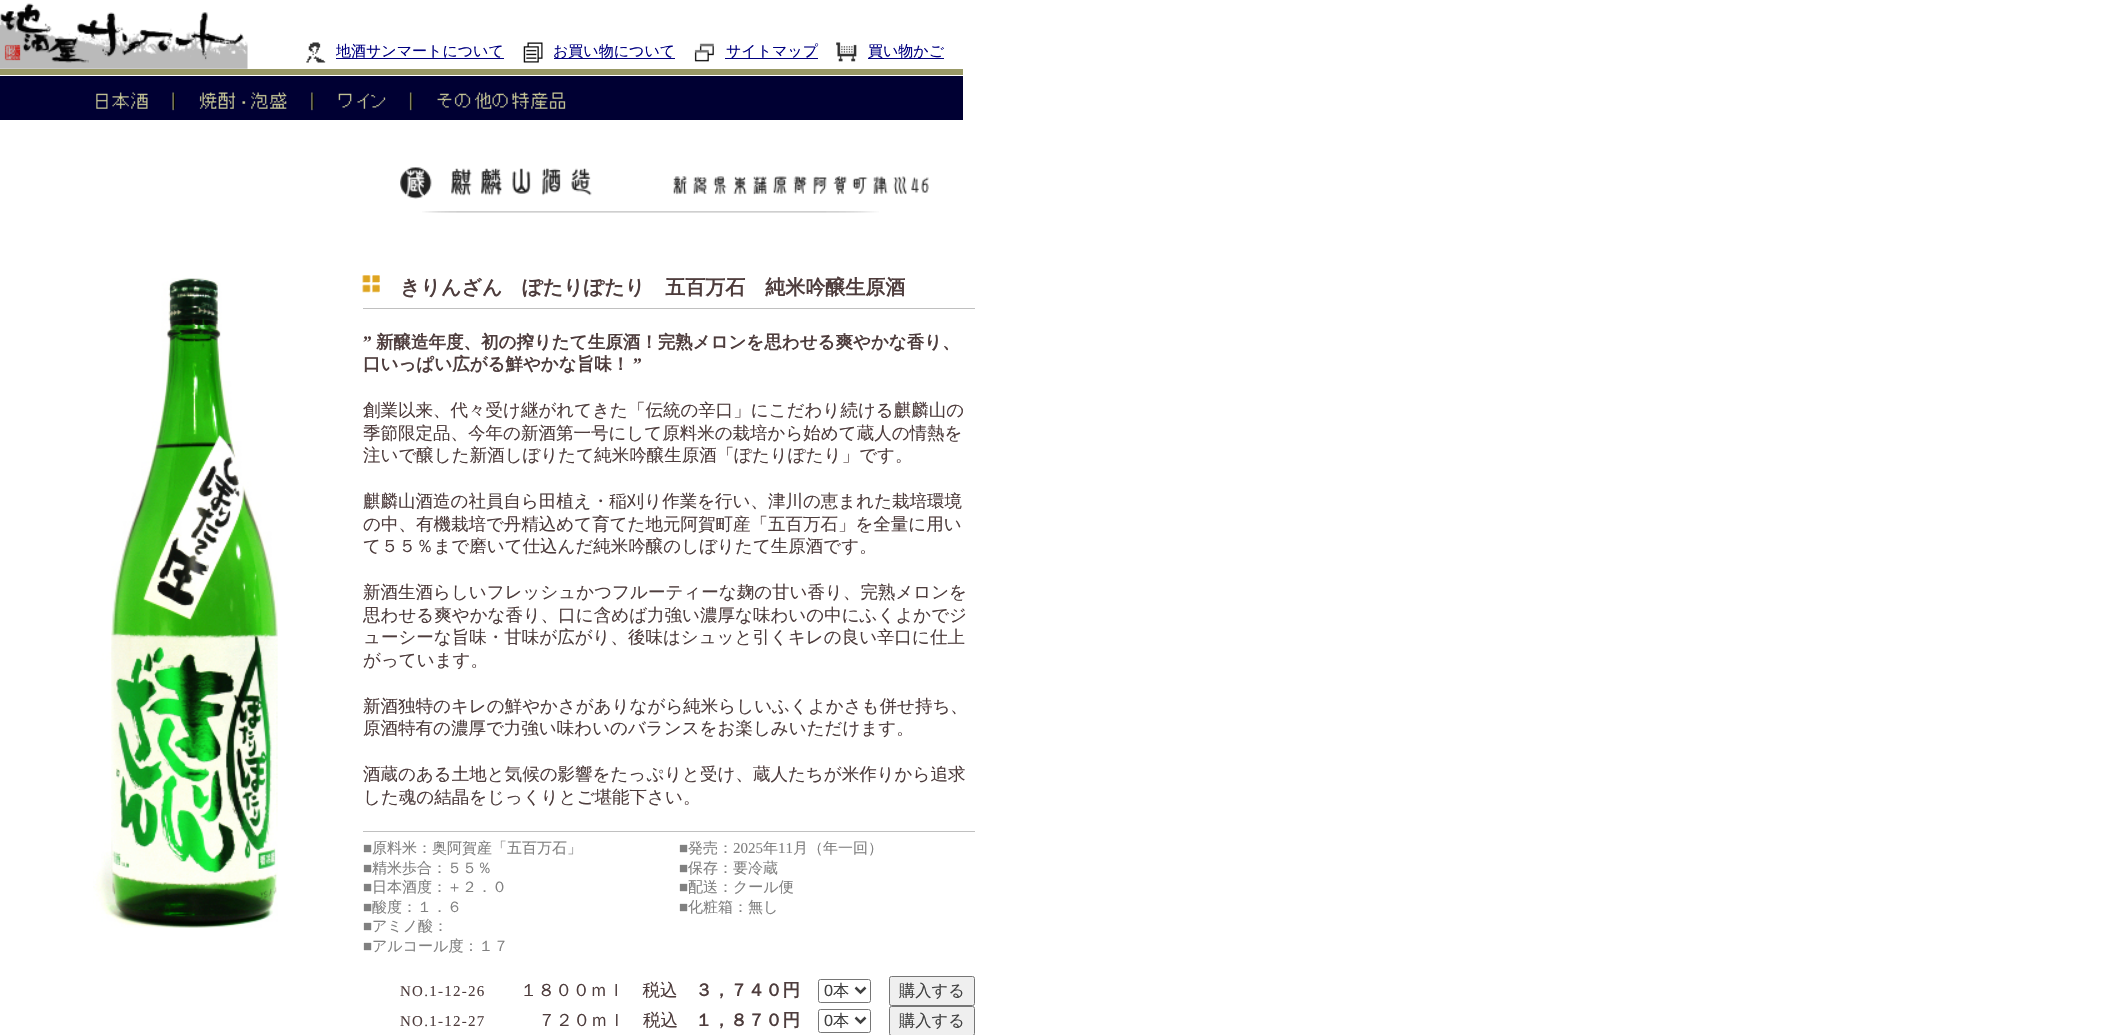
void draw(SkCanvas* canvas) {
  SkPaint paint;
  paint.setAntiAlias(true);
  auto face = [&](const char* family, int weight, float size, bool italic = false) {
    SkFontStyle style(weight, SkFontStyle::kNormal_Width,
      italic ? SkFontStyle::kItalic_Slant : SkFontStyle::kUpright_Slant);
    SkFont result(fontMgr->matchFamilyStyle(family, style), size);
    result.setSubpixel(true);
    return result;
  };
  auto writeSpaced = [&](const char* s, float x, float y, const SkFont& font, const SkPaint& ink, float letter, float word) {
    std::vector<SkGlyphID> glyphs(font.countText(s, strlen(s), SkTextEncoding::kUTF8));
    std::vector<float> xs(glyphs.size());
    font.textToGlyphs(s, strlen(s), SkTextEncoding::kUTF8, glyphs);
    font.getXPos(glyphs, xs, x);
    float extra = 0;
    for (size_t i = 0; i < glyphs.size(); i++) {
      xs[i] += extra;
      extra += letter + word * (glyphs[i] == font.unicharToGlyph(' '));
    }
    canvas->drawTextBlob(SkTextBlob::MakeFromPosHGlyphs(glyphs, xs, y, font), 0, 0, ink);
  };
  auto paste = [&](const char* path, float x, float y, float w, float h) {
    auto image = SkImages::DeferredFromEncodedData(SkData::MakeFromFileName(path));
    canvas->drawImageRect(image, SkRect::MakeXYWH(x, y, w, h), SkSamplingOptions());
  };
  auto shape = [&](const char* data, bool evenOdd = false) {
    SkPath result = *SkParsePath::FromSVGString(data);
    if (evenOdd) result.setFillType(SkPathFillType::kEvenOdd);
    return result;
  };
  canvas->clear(0xffffffff);
  paste("img/1.png", 0, 3, 248, 66);
  paste("img/2.png", 306, 42, 20, 21);
  paint.setColor(0xff000080);
  canvas->drawRect(SkRect::MakeXYWH(336, 58, 168, 1), paint);
  paste("img/3.png", 523, 42, 20, 21);
  canvas->drawRect(SkRect::MakeXYWH(554, 58, 121, 1), paint);
  paste("img/4.png", 694, 43, 20, 19);
  canvas->drawRect(SkRect::MakeXYWH(725, 58, 93, 1), paint);
  paste("img/5.png", 836, 42, 21, 20);
  {
    const struct { float x, y, w, h; SkColor color; } items[] = {
      {868, 58, 76, 1, 0xff000080},
      {0, 76, 963, 44, 0xff000033},
      {0, 69, 963, 6, 0xff999966},
    };
    for (auto [x, y, w, h, color] : items) {
      paint.setColor(color);
      canvas->drawRect(SkRect::MakeXYWH(x, y, w, h), paint);
    }
  }
  paste("img/6.png", 96, 92, 79, 19);
  paste("img/7.png", 199, 92, 115, 19);
  paste("img/8.png", 338, 92, 75, 19);
  paste("img/9.png", 437, 92, 129, 17);
  paste("img/10.png", 400, 167, 529, 32);
  paste("img/11.png", 422, 211, 457, 2);
  paste("img/12.png", 93, 278, 185, 650);
  paste("img/13.png", 362, 275, 18, 18);
  paint.setColor(0xffc0c0c0);
  canvas->drawRect(SkRect::MakeXYWH(363, 308, 612, 1), paint);
  canvas->drawRect(SkRect::MakeXYWH(363, 831, 612, 1), paint);
  paint.setStroke(true);
  paint.setStrokeWidth(1);
  paint.setColor(0xff767676);
  canvas->drawRoundRect(SkRect::MakeXYWH(818.5f, 979.5f, 52, 23), 2, 2, paint);
  paint.setStrokeWidth(2.5f);
  paint.setColor(0xff404040);
  canvas->drawPath(shape("M855.5 987.5L860.5 992.5L865.5 987.5"), paint);
  paint.setStroke(false);
  paint.setColor(0xffefefef);
  canvas->drawRoundRect(SkRect::MakeXYWH(889.5f, 976.5f, 85, 29), 2, 2, paint);
  paint.setStroke(true);
  paint.setStrokeWidth(1);
  paint.setColor(0xff767676);
  canvas->drawRoundRect(SkRect::MakeXYWH(889.5f, 976.5f, 85, 29), 2, 2, paint);
  canvas->drawRoundRect(SkRect::MakeXYWH(818.5f, 1009.5f, 52, 23), 2, 2, paint);
  paint.setStrokeWidth(2.5f);
  paint.setColor(0xff404040);
  canvas->drawPath(shape("M855.5 1017.5L860.5 1022.5L865.5 1017.5"), paint);
  paint.setStroke(false);
  paint.setColor(0xffefefef);
  canvas->drawRoundRect(SkRect::MakeXYWH(889.5f, 1006.5f, 85, 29), 2, 2, paint);
  paint.setStroke(true);
  paint.setStrokeWidth(1);
  paint.setColor(0xff767676);
  canvas->drawRoundRect(SkRect::MakeXYWH(889.5f, 1006.5f, 85, 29), 2, 2, paint);
  auto f0 = face("WenQuanYi Zen Hei", 500, 15);
  paint.setStroke(false);
  paint.setColor(0xff000080);
  {
    const struct { const char* s; float x, y; } items[] = {
      {"地酒サンマートについて", 336, 56},
      {"お買い物について", 553, 56},
      {"サイトマップ", 726, 56},
      {"買い物かご", 868, 56},
    };
    for (auto [s, x, y] : items) {
      canvas->drawString(s, x, y, f0, paint);
    }
  }
  auto f1 = face("WenQuanYi Zen Hei", 700, 20);
  paint.setColor(0xff4e3d3d);
  canvas->drawString("きりんざん　ぽたりぽたり　五百万石　純米吟醸生原酒", 400, 294, f1, paint);
  auto f2 = face("Liberation Serif", 700, 17.5f);
  canvas->drawString("”", 363, 348, f2, paint);
  auto f3 = face("WenQuanYi Zen Hei", 700, 17.5f);
  canvas->drawString("新醸造年度、初の搾りたて生原酒！完熟メロンを思わせる爽やかな香り、", 376, 348, f3, paint);
  canvas->drawString("口いっぱい広がる鮮やかな旨味！", 363, 370, f3, paint);
  canvas->drawString("”", 633, 370, f2, paint);
  auto f4 = face("WenQuanYi Zen Hei", 500, 17.5f);
  {
    const struct { const char* s; float x, y; } items[] = {
      {"創業以来、代々受け継がれてきた「伝統の辛口」にこだわり続ける麒麟山の", 363, 416},
      {"季節限定品、今年の新酒第一号にして原料米の栽培から始めて蔵人の情熱を", 363, 439},
      {"注いで醸した新酒しぼりたて純米吟醸生原酒「ぽたりぽたり」です。", 363, 461},
      {"麒麟山酒造の社員自ら田植え・稲刈り作業を行い、津川の恵まれた栽培環境", 363, 507},
      {"の中、有機栽培で丹精込めて育てた地元阿賀町産「五百万石」を全量に用い", 363, 530},
      {"て５５％まで磨いて仕込んだ純米吟醸のしぼりたて生原酒です。", 363, 552},
      {"新酒生酒らしいフレッシュかつフルーティーな麹の甘い香り、完熟メロンを", 363, 598},
      {"思わせる爽やかな香り、口に含めば力強い濃厚な味わいの中にふくよかでジ", 363, 621},
      {"ューシーな旨味・甘味が広がり、後味はシュッと引くキレの良い辛口に仕上", 363, 643},
      {"がっています。", 363, 666},
      {"新酒独特のキレの鮮やかさがありながら純米らしいふくよかさも併せ持ち、", 363, 712},
      {"原酒特有の濃厚で力強い味わいのバランスをお楽しみいただけます。", 363, 734},
      {"酒蔵のある土地と気候の影響をたっぷりと受け、蔵人たちが米作りから追求", 363, 780},
      {"した魂の結晶をじっくりとご堪能下さい。", 363, 803},
    };
    for (auto [s, x, y] : items) {
      canvas->drawString(s, x, y, f4, paint);
    }
  }
  auto f5 = face("Liberation Serif", 400, 15);
  paint.setColor(0xff808080);
  canvas->drawString("■", 363, 853, f5, paint);
  canvas->drawString("原料米：奥阿賀産「五百万石」", 372, 853, f0, paint);
  canvas->drawString("■", 363, 873, f5, paint);
  canvas->drawString("精米歩合：５５％", 372, 873, f0, paint);
  canvas->drawString("■", 363, 892, f5, paint);
  canvas->drawString("日本酒度：＋２．０", 372, 892, f0, paint);
  canvas->drawString("■", 363, 912, f5, paint);
  canvas->drawString("酸度：１．６", 372, 912, f0, paint);
  canvas->drawString("■", 363, 931, f5, paint);
  canvas->drawString("アミノ酸：", 372, 931, f0, paint);
  canvas->drawString("■", 363, 951, f5, paint);
  canvas->drawString("アルコール度：１７", 372, 951, f0, paint);
  canvas->drawString("■", 679, 853, f5, paint);
  canvas->drawString("発売：", 688, 853, f0, paint);
  canvas->drawString("2025", 733, 853, f5, paint);
  canvas->drawString("年", 763, 853, f0, paint);
  canvas->drawString("11", 778, 853, f5, paint);
  canvas->drawString("月（年一回）", 793, 853, f0, paint);
  canvas->drawString("■", 679, 873, f5, paint);
  canvas->drawString("保存：要冷蔵", 688, 873, f0, paint);
  canvas->drawString("■", 679, 892, f5, paint);
  canvas->drawString("配送：クール便", 688, 892, f0, paint);
  canvas->drawString("■", 679, 912, f5, paint);
  canvas->drawString("化粧箱：無し", 688, 912, f0, paint);
  paint.setColor(0xff4e3d3d);
  writeSpaced("NO.1-12-26", 400, 996, f5, paint, 1.25f, 0);
  canvas->drawString("１８００ｍｌ　税込", 520, 996, f4, paint);
  canvas->drawString("３，７４０円", 695, 996, f3, paint);
  auto f6 = face("Liberation Sans", 400, 16.25f);
  paint.setColor(0xff404040);
  canvas->drawString("0", 824, 996, f6, paint);
  auto f7 = face("WenQuanYi Zen Hei", 500, 16.25f);
  canvas->drawString("本", 833, 996, f7, paint);
  canvas->drawString("購入する", 899, 996, f7, paint);
  paint.setColor(0xff4e3d3d);
  writeSpaced("NO.1-12-27", 400, 1026, f5, paint, 1.25f, 0);
  canvas->drawString("７２０ｍｌ　税込", 538, 1026, f4, paint);
  canvas->drawString("１，８７０円", 695, 1026, f3, paint);
  paint.setColor(0xff404040);
  canvas->drawString("0", 824, 1026, f6, paint);
  canvas->drawString("本", 833, 1026, f7, paint);
  canvas->drawString("購入する", 899, 1026, f7, paint);
}
